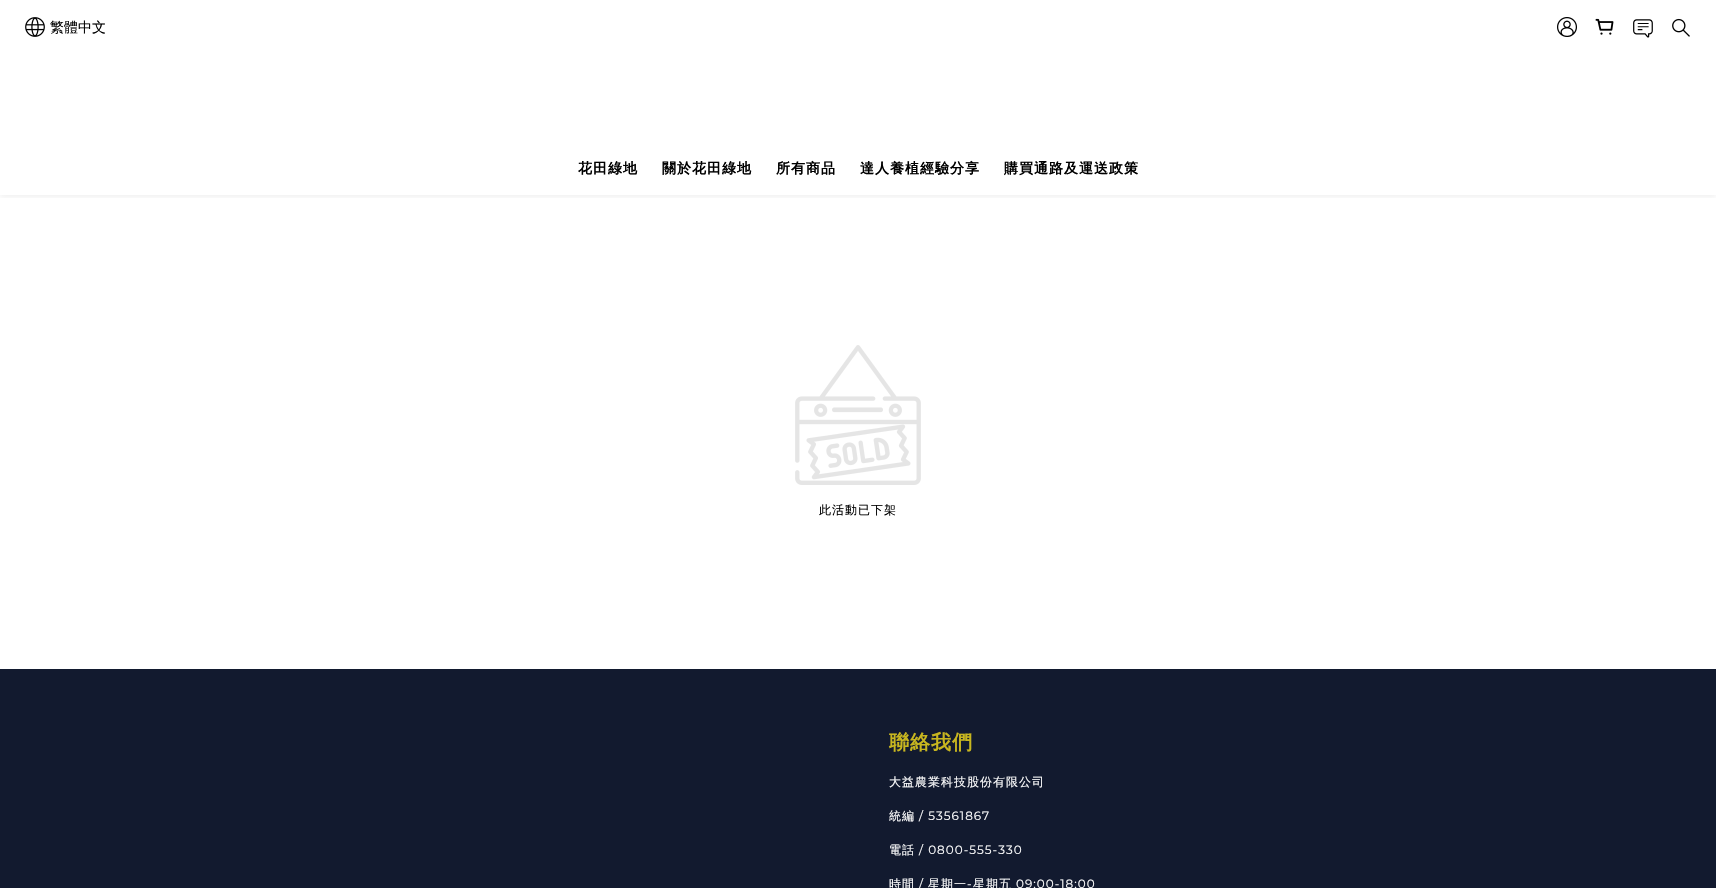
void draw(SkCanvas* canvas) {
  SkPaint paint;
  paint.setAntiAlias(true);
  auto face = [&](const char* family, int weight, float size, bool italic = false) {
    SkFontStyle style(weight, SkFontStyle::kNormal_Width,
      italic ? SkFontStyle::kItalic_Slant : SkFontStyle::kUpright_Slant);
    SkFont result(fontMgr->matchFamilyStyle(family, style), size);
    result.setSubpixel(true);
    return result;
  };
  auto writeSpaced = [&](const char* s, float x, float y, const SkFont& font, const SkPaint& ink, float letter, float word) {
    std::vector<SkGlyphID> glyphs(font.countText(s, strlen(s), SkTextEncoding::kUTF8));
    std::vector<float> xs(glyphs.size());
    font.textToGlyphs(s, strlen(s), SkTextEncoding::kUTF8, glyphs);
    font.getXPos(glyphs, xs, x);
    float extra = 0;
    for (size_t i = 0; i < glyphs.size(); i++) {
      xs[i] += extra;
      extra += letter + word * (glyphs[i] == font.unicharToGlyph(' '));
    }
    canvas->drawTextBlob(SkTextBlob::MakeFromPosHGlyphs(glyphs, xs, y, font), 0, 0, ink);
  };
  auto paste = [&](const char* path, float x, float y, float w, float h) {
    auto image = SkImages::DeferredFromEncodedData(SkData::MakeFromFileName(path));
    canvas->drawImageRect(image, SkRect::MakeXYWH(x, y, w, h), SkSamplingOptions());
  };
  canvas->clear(0xffffffff);
  canvas->save();
  canvas->clipRect(SkRect::MakeXYWH(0, 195, 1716, 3));
  paint.setColor(0x0f000000);
  paint.setMaskFilter(SkMaskFilter::MakeBlur(kNormal_SkBlurStyle, 3));
  canvas->drawRect(SkRect::MakeXYWH(0, 2, 1716, 195), paint);
  paint.setMaskFilter(nullptr);
  canvas->restore();
  paste("img/1.png", 25, 17, 20, 20);
  paste("img/2.png", 1557, 17, 20, 20);
  paste("img/3.png", 1595, 18, 19, 17);
  paste("img/4.png", 1633, 19, 20, 19);
  paste("img/5.png", 1672, 18, 18, 19);
  paste("img/6.png", 795, 345, 126, 140);
  paint.setColor(0xff121a2f);
  canvas->drawRect(SkRect::MakeXYWH(0, 669, 1716, 219), paint);
  auto f0 = face("WenQuanYi Zen Hei", 500, 14);
  paint.setColor(0xff000000);
  canvas->drawString("繁體中文", 50, 32, f0, paint);
  auto f1 = face("WenQuanYi Zen Hei", 700, 14);
  {
    const struct { const char* s; float x, y; } items[] = {
      {"花田綠地", 578, 173},
      {"關於花田綠地", 662, 173},
      {"所有商品", 776, 173},
      {"達人養植經驗分享", 860, 173},
      {"購買通路及運送政策", 1004, 173},
    };
    for (auto [s, x, y] : items) {
      writeSpaced(s, x, y, f1, paint, 1, 0);
    }
  }
  auto f2 = face("WenQuanYi Zen Hei", 500, 12);
  writeSpaced("此活動已下架", 819, 514, f2, paint, 1, 0);
  auto f3 = face("WenQuanYi Zen Hei", 700, 20);
  paint.setColor(0xffc8b61f);
  writeSpaced("聯絡我們", 889, 749, f3, paint, 1, 0);
  paint.setColor(0xffffffff);
  writeSpaced("大益農業科技股份有限公司", 889, 786, f2, paint, 1, 0);
  writeSpaced("統編", 889, 820, f2, paint, 1, 0);
  auto f4 = face("Montserrat", 400, 12);
  writeSpaced("/ 53561867", 919, 820, f4, paint, 1, 0);
  writeSpaced("電話", 889, 854, f2, paint, 1, 0);
  writeSpaced("/ 0800-555-330", 919, 854, f4, paint, 1, 0);
  writeSpaced("時間", 889, 888, f2, paint, 1, 0);
  writeSpaced("/", 919, 888, f4, paint, 1, 0);
  writeSpaced("星期一", 928, 888, f2, paint, 1, 0);
  writeSpaced("-", 967, 888, f4, paint, 1, 0);
  writeSpaced("星期五", 973, 888, f2, paint, 1, 0);
  writeSpaced("09:00-18:00", 1016, 888, f4, paint, 1, 0);
}
